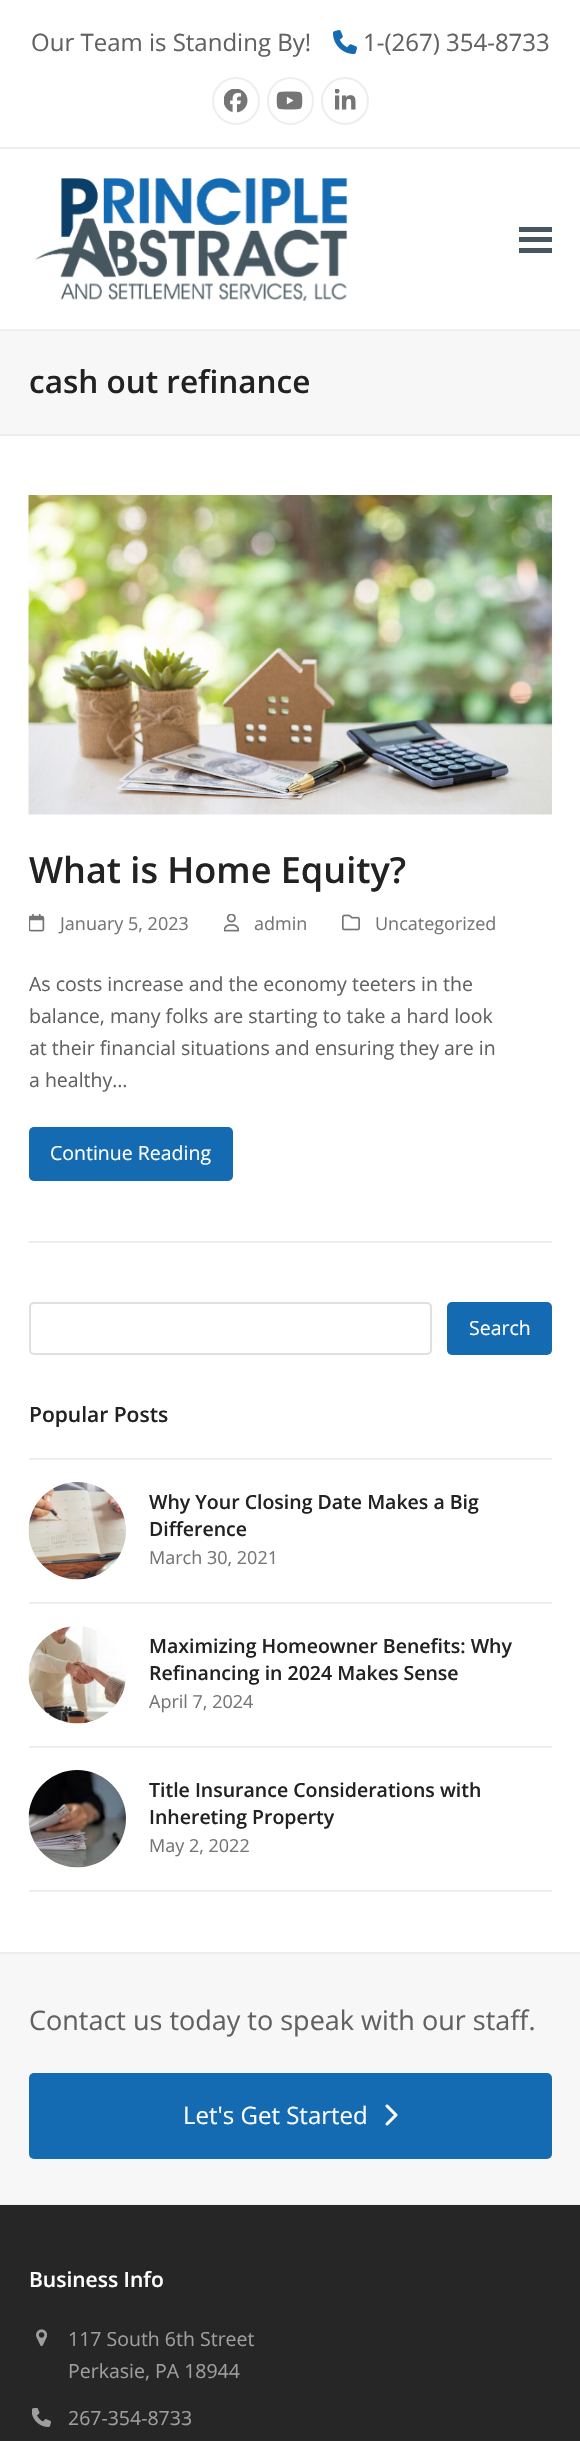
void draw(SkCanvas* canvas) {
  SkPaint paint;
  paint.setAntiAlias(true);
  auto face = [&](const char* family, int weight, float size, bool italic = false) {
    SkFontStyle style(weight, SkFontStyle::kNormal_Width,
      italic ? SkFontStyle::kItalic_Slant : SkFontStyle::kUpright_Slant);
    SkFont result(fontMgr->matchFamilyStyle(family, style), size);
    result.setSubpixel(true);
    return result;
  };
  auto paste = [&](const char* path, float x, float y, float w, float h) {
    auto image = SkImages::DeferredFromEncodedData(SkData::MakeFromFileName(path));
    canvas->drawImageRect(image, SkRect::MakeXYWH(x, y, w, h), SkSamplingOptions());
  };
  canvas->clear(0xffffffff);
  paint.setColor(0xffeeeeee);
  canvas->drawRect(SkRect::MakeXYWH(0, 147, 580, 2), paint);
  paste("img/1.png", 333, 30, 24, 24);
  paint.setStroke(true);
  paint.setStrokeWidth(2);
  canvas->drawCircle(236, 101, 23, paint);
  paste("img/2.png", 224, 89, 24, 24);
  canvas->drawRoundRect(SkRect::MakeXYWH(268, 78, 45, 46), 22.5f, 22.5f, paint);
  paste("img/3.png", 276, 91, 27, 19);
  canvas->drawCircle(345, 101, 23, paint);
  paste("img/4.png", 335, 89, 21, 21);
  paste("img/5.png", 35, 178, 313, 123);
  paint.setStroke(false);
  {
    const struct { float x, y, w, h; SkColor color; } items[] = {
      {519, 237, 33, 5, 0xff475760},
      {519, 227, 33, 5, 0xff475760},
      {519, 248, 33, 5, 0xff475760},
      {0, 331, 580, 103, 0xfff7f7f7},
      {0, 329, 580, 2, 0xffeeeeee},
      {0, 434, 580, 2, 0xffeeeeee},
    };
    for (auto [x, y, w, h, color] : items) {
      paint.setColor(color);
      canvas->drawRect(SkRect::MakeXYWH(x, y, w, h), paint);
    }
  }
  paste("img/6.png", 28, 495, 524, 320);
  paste("img/7.png", 29, 914, 16, 18);
  paste("img/8.png", 224, 914, 15, 18);
  paste("img/9.png", 342, 914, 18, 17);
  paint.setColor(0xff156bb2);
  canvas->drawRoundRect(SkRect::MakeXYWH(29, 1127, 204, 54), 5, 5, paint);
  paint.setColor(0xffeeeeee);
  canvas->drawRect(SkRect::MakeXYWH(29, 1241, 523, 2), paint);
  paint.setStroke(true);
  paint.setColor(0xffe0e0e0);
  canvas->drawRoundRect(SkRect::MakeXYWH(30, 1303, 401, 51), 4, 4, paint);
  paint.setStroke(false);
  paint.setColor(0xff156bb2);
  canvas->drawRoundRect(SkRect::MakeXYWH(447, 1302, 105, 53), 5, 5, paint);
  paint.setColor(0xffeeeeee);
  canvas->drawRect(SkRect::MakeXYWH(29, 1458, 523, 2), paint);
  canvas->drawRect(SkRect::MakeXYWH(29, 1602, 523, 2), paint);
  paste("img/10.png", 28, 1482, 98, 98);
  canvas->drawRect(SkRect::MakeXYWH(29, 1746, 523, 2), paint);
  paste("img/11.png", 28, 1626, 98, 98);
  canvas->drawRect(SkRect::MakeXYWH(29, 1890, 523, 2), paint);
  paste("img/12.png", 28, 1770, 98, 98);
  {
    const struct { float x, y, w, h; SkColor color; } items[] = {
      {0, 1954, 580, 250, 0xfff7f7f7},
      {0, 1952, 580, 2, 0xffeeeeee},
      {0, 2204, 580, 1, 0xffeeeeee},
    };
    for (auto [x, y, w, h, color] : items) {
      paint.setColor(color);
      canvas->drawRect(SkRect::MakeXYWH(x, y, w, h), paint);
    }
  }
  paint.setColor(0xff156bb2);
  canvas->drawRoundRect(SkRect::MakeXYWH(29, 2073, 523, 86), 5, 5, paint);
  paste("img/13.png", 385, 2104, 13, 22);
  paint.setColor(0xff262626);
  canvas->drawRect(SkRect::MakeXYWH(0, 2205, 580, 236), paint);
  paste("img/14.png", 36, 2329, 11, 18);
  paste("img/15.png", 32, 2408, 19, 19);
  auto f0 = face("Open Sans", 400, 24);
  paint.setColor(0xff616161);
  canvas->drawString("Our Team is Standing By!", 31, 51, f0, paint);
  canvas->drawString("1-(267) 354-8733", 363, 51, f0, paint);
  auto f1 = face("Open Sans", 600, 31.5f);
  paint.setColor(0xff222222);
  canvas->drawString("cash out refinance", 29, 393, f1, paint);
  auto f2 = face("Open Sans", 600, 36);
  canvas->drawString("What is Home Equity?", 29, 883, f2, paint);
  auto f3 = face("Open Sans", 400, 18);
  paint.setColor(0xff757575);
  {
    const struct { const char* s; float x, y; } items[] = {
      {"January 5, 2023", 60, 930},
      {"admin", 254, 930},
      {"Uncategorized", 375, 930},
    };
    for (auto [s, x, y] : items) {
      canvas->drawString(s, x, y, f3, paint);
    }
  }
  auto f4 = face("Open Sans", 400, 19.5f);
  paint.setColor(0xff616161);
  {
    const struct { const char* s; float x, y; } items[] = {
      {"As costs increase and the economy teeters in the", 29, 991},
      {"balance, many folks are starting to take a hard look", 29, 1023},
      {"at their financial situations and ensuring they are in", 29, 1055},
      {"a healthy…", 29, 1087},
    };
    for (auto [s, x, y] : items) {
      canvas->drawString(s, x, y, f4, paint);
    }
  }
  paint.setColor(0xffffffff);
  canvas->drawString("Continue Reading", 50, 1160, f4, paint);
  canvas->drawString("Search", 469, 1335, f4, paint);
  auto f5 = face("Open Sans", 600, 21);
  paint.setColor(0xff222222);
  canvas->drawString("Popular Posts", 29, 1422, f5, paint);
  auto f6 = face("Open Sans", 600, 19.5f);
  canvas->drawString("Why Your Closing Date Makes a Big", 149, 1509, f6, paint);
  canvas->drawString("Difference", 149, 1536, f6, paint);
  paint.setColor(0xff757575);
  canvas->drawString("March 30, 2021", 149, 1564, f3, paint);
  paint.setColor(0xff222222);
  canvas->drawString("Maximizing Homeowner Benefits: Why", 149, 1653, f6, paint);
  canvas->drawString("Refinancing in 2024 Makes Sense", 149, 1680, f6, paint);
  paint.setColor(0xff757575);
  canvas->drawString("April 7, 2024", 149, 1708, f3, paint);
  paint.setColor(0xff222222);
  canvas->drawString("Title Insurance Considerations with", 149, 1797, f6, paint);
  canvas->drawString("Inhereting Property", 149, 1824, f6, paint);
  paint.setColor(0xff757575);
  canvas->drawString("May 2, 2022", 149, 1852, f3, paint);
  auto f7 = face("Open Sans", 400, 27);
  paint.setColor(0xff616161);
  canvas->drawString("Contact us today to speak with our staff.", 29, 2030, f7, paint);
  paint.setColor(0xffffffff);
  canvas->drawString("Let's Get Started", 183, 2124, f0, paint);
  canvas->drawString("Business Info", 29, 2287, f5, paint);
  paint.setColor(0xff9e9e9e);
  {
    const struct { const char* s; float x, y; } items[] = {
      {"117 South 6th Street", 68, 2346},
      {"Perkasie, PA 18944", 68, 2378},
      {"267-354-8733", 68, 2425},
    };
    for (auto [s, x, y] : items) {
      canvas->drawString(s, x, y, f4, paint);
    }
  }
}
